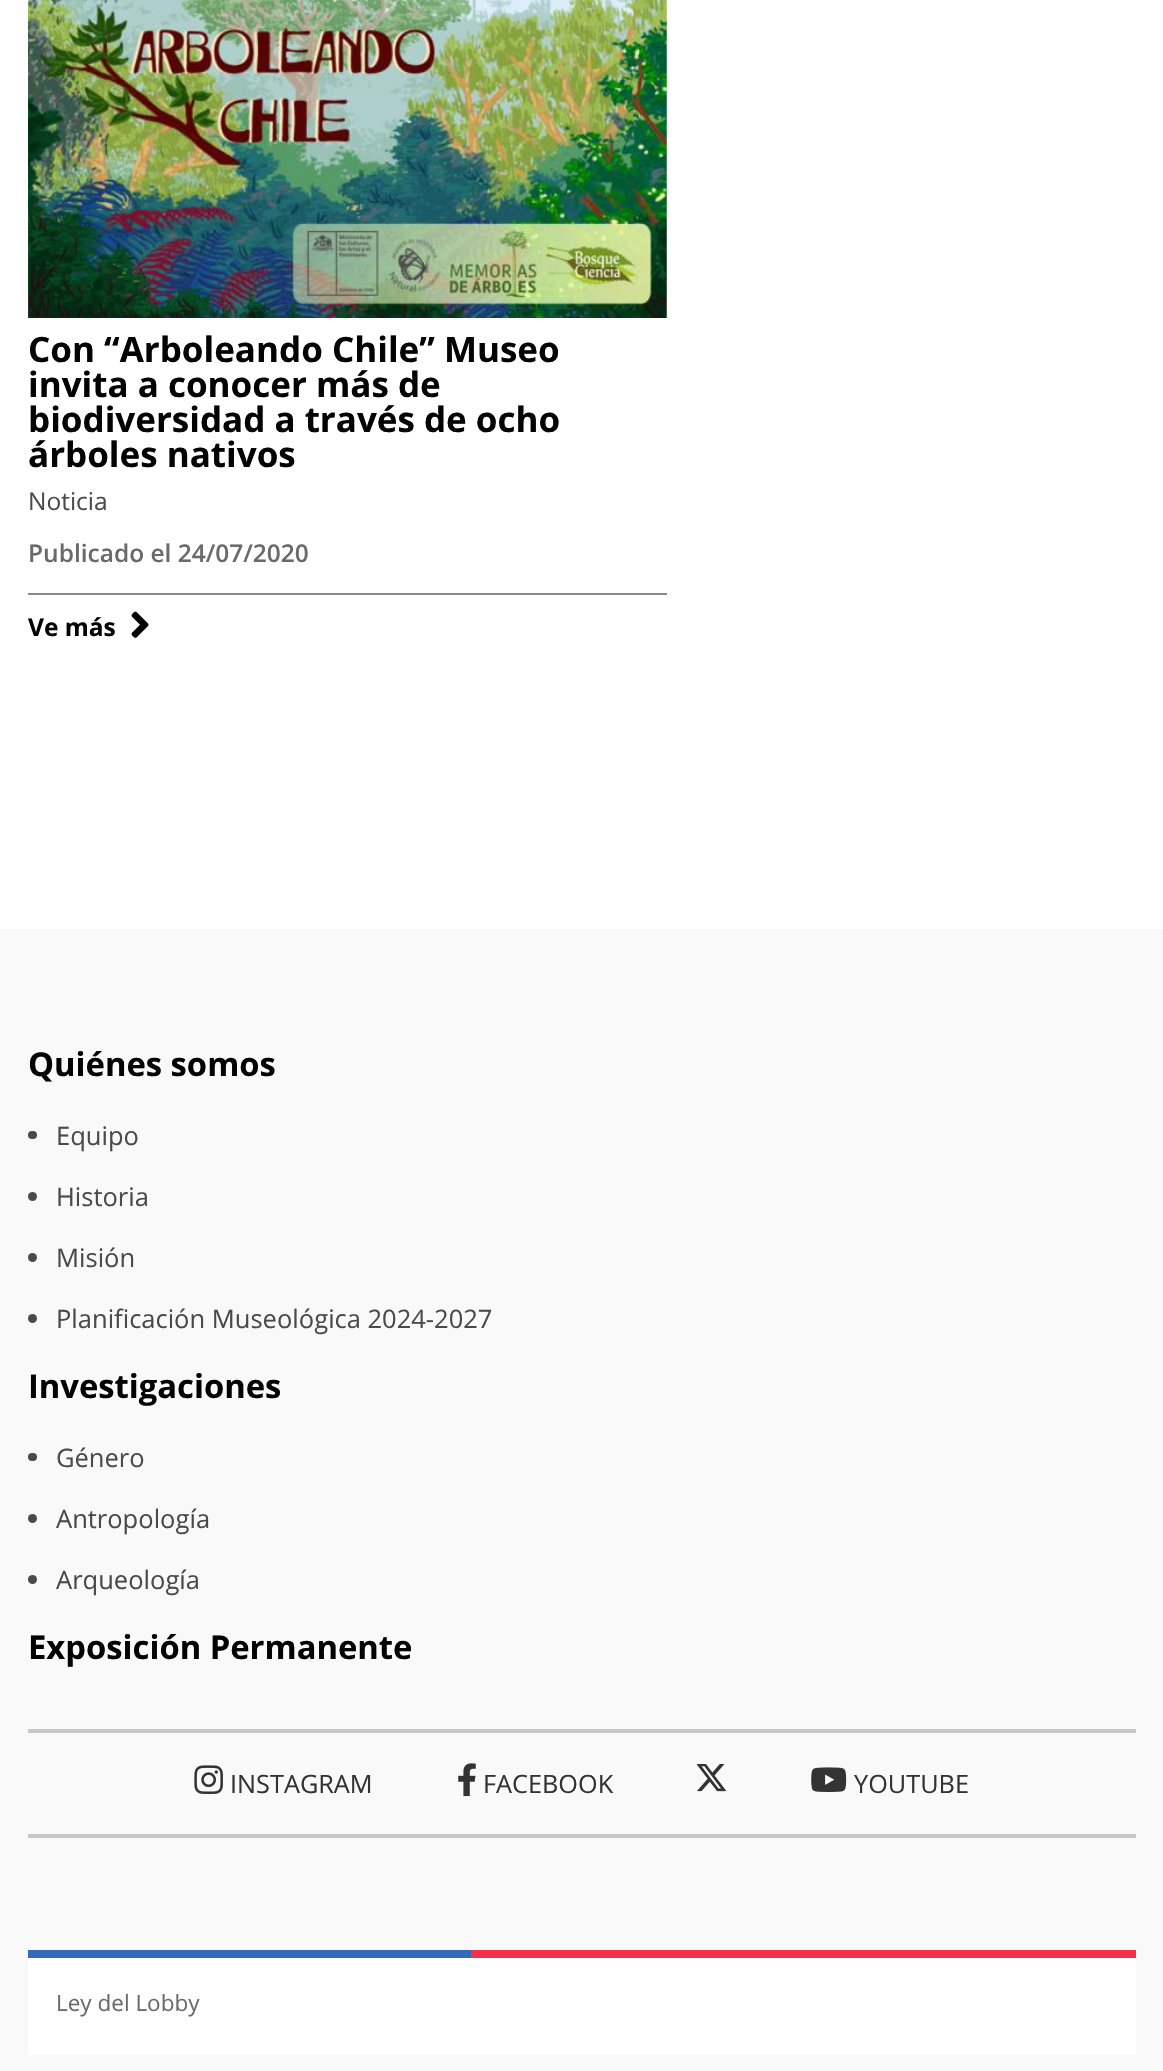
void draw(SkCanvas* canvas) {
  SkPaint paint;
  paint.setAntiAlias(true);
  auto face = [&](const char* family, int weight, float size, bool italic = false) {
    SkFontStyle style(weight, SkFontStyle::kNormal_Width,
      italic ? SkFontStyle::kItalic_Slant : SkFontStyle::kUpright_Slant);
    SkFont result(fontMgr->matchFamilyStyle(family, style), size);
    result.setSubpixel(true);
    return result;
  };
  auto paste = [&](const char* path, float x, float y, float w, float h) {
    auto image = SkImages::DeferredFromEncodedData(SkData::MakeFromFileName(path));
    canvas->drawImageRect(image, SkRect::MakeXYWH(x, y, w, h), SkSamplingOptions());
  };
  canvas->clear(0xffffffff);
  paste("img/1.png", 28, 0, 639, 318);
  paint.setColor(0xff8a8a8a);
  canvas->drawRect(SkRect::MakeXYWH(28, 593, 639, 2), paint);
  paste("img/2.png", 131, 611, 18, 27);
  paint.setColor(0xfff9f9f9);
  canvas->drawRect(SkRect::MakeXYWH(0, 929, 1163, 1142), paint);
  paint.setColor(0xff4a4a4a);
  canvas->drawRoundRect(SkRect::MakeXYWH(28, 1131, 9, 8), 4, 4, paint);
  canvas->drawCircle(32.5f, 1196.5f, 4.5f, paint);
  canvas->drawCircle(32.5f, 1257.5f, 4.5f, paint);
  canvas->drawCircle(32.5f, 1318.5f, 4.5f, paint);
  canvas->drawRoundRect(SkRect::MakeXYWH(28, 1453, 9, 8), 4, 4, paint);
  canvas->drawCircle(32.5f, 1518.5f, 4.5f, paint);
  canvas->drawCircle(32.5f, 1579.5f, 4.5f, paint);
  paint.setColor(0xffc8c8c8);
  canvas->drawRect(SkRect::MakeXYWH(28, 1729, 1108, 4), paint);
  canvas->drawRect(SkRect::MakeXYWH(28, 1834, 1108, 4), paint);
  paste("img/3.png", 194, 1765, 29, 30);
  paste("img/4.png", 458, 1763, 18, 34);
  paste("img/5.png", 697, 1764, 29, 28);
  paste("img/6.png", 811, 1767, 36, 25);
  {
    const struct { float x, y, w, h; SkColor color; } items[] = {
      {28, 1958, 1108, 97, 0xffffffff},
      {28, 1950, 443, 8, 0xff346abc},
      {471, 1950, 665, 8, 0xfff62f4a},
    };
    for (auto [x, y, w, h, color] : items) {
      paint.setColor(color);
      canvas->drawRect(SkRect::MakeXYWH(x, y, w, h), paint);
    }
  }
  auto f0 = face("Open Sans", 700, 35);
  paint.setColor(0xff030303);
  {
    const struct { const char* s; float x, y; } items[] = {
      {"Con “Arboleando Chile” Museo", 28, 362},
      {"invita a conocer más de", 28, 397},
      {"biodiversidad a través de ocho", 28, 432},
      {"árboles nativos", 28, 467},
    };
    for (auto [s, x, y] : items) {
      canvas->drawString(s, x, y, f0, paint);
    }
  }
  auto f1 = face("Open Sans", 400, 24.5f);
  paint.setColor(0xff4a4a4a);
  canvas->drawString("Noticia", 28, 510, f1, paint);
  auto f2 = face("Open Sans", 600, 24.5f);
  paint.setColor(0xff6a6a6a);
  canvas->drawString("Publicado el 24/07/2020", 28, 562, f2, paint);
  auto f3 = face("Open Sans", 700, 24.5f);
  paint.setColor(0xff030303);
  canvas->drawString("Ve más", 28, 636, f3, paint);
  auto f4 = face("Open Sans", 700, 32.75f);
  canvas->drawString("Quiénes somos", 28, 1076, f4, paint);
  auto f5 = face("Open Sans", 400, 25.5f);
  paint.setColor(0xff4a4a4a);
  {
    const struct { const char* s; float x, y; } items[] = {
      {"Equipo", 56, 1145},
      {"Historia", 56, 1206},
      {"Misión", 56, 1267},
      {"Planificación Museológica 2024-2027", 56, 1328},
    };
    for (auto [s, x, y] : items) {
      canvas->drawString(s, x, y, f5, paint);
    }
  }
  paint.setColor(0xff030303);
  canvas->drawString("Investigaciones", 28, 1398, f4, paint);
  paint.setColor(0xff4a4a4a);
  {
    const struct { const char* s; float x, y; } items[] = {
      {"Género", 56, 1467},
      {"Antropología", 56, 1528},
      {"Arqueología", 56, 1589},
    };
    for (auto [s, x, y] : items) {
      canvas->drawString(s, x, y, f5, paint);
    }
  }
  paint.setColor(0xff030303);
  canvas->drawString("Exposición Permanente", 28, 1659, f4, paint);
  auto f6 = face("Open Sans", 400, 25.25f);
  paint.setColor(0xff333333);
  {
    const struct { const char* s; float x, y; } items[] = {
      {"INSTAGRAM", 230, 1793},
      {"FACEBOOK", 483, 1793},
      {"YOUTUBE", 854, 1793},
    };
    for (auto [s, x, y] : items) {
      canvas->drawString(s, x, y, f6, paint);
    }
  }
  auto f7 = face("Open Sans", 400, 22.5f);
  paint.setColor(0xff6a6a6a);
  canvas->drawString("Ley del Lobby", 56, 2011, f7, paint);
}
